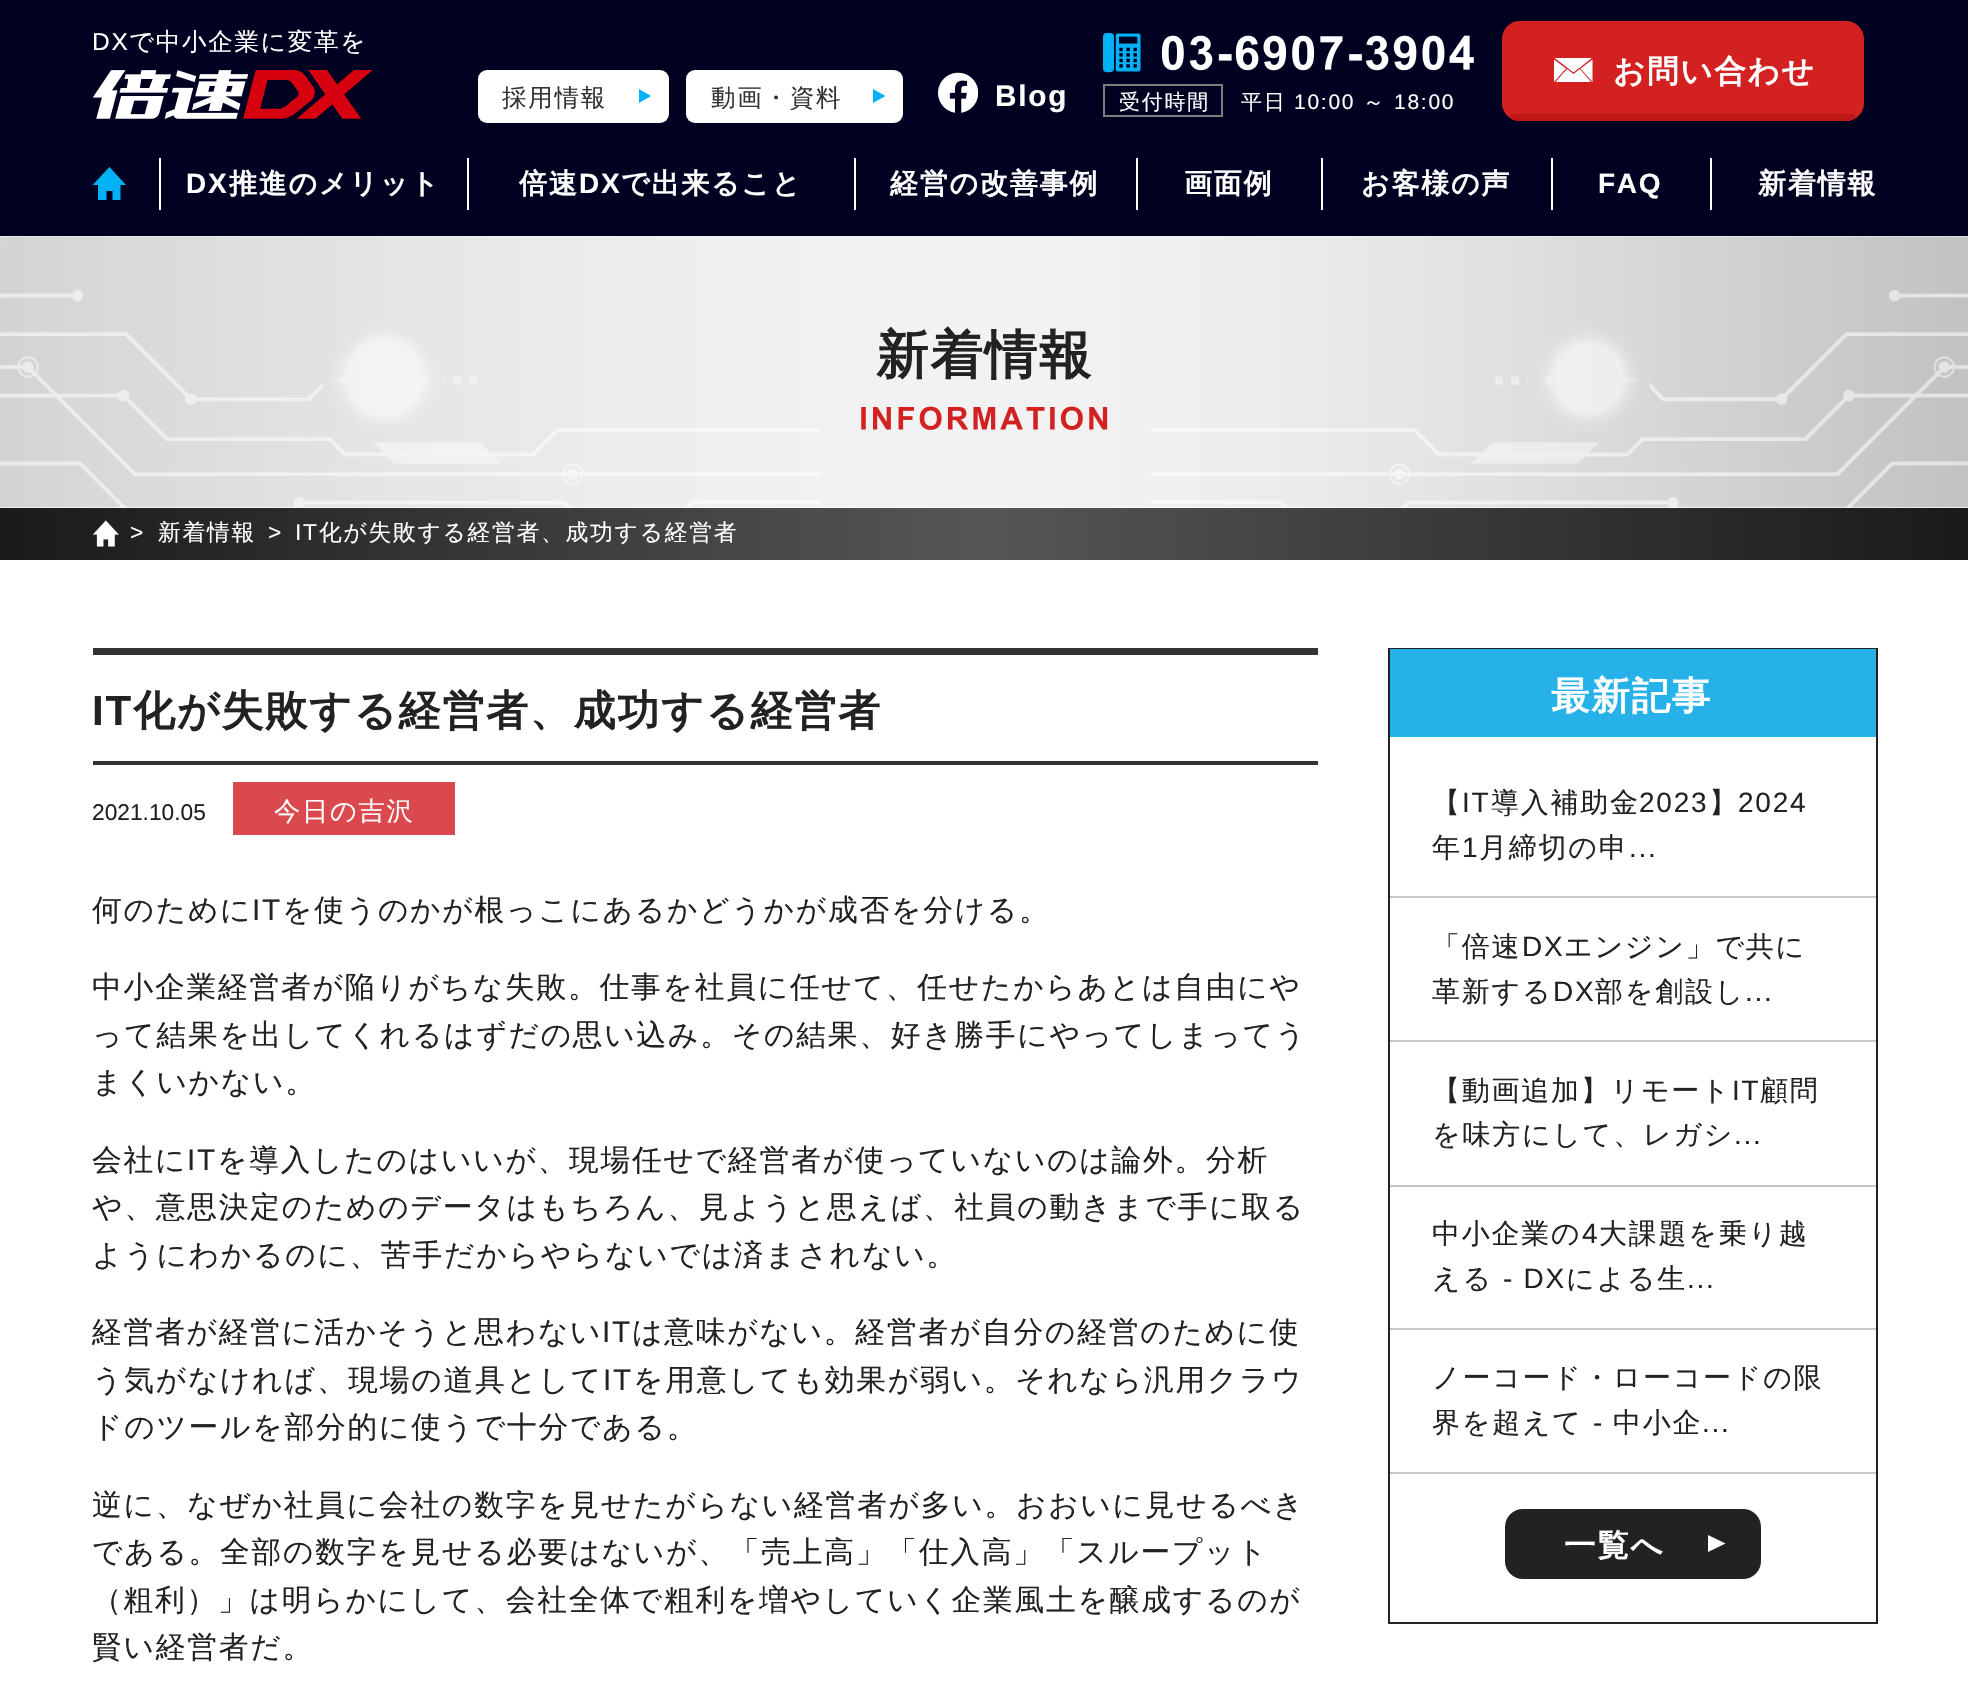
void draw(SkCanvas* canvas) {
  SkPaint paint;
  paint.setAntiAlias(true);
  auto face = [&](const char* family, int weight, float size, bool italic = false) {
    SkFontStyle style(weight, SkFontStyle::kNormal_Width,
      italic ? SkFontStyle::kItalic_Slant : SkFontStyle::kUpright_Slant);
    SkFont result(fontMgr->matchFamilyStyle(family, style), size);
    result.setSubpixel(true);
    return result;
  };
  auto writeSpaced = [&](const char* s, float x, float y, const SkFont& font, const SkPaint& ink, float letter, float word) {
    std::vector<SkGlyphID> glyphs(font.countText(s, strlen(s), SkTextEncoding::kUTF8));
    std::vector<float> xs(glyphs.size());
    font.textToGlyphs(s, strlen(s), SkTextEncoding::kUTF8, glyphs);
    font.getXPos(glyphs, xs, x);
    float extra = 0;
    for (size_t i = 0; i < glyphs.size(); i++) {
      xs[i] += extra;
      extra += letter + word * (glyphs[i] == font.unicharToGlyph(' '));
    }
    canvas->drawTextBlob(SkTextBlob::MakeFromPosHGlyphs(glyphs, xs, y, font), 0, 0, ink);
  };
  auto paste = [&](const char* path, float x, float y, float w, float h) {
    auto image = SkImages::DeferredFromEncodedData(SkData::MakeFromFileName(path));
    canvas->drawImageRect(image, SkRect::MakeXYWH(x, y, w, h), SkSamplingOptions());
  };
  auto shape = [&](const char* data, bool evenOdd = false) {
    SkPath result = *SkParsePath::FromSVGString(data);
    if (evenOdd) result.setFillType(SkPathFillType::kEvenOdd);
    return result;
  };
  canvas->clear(0xffffffff);
  paint.setColor(0xff000020);
  canvas->drawRect(SkRect::MakeXYWH(0, 0, 1968, 236), paint);
  paste("img/1.png", 93, 70, 280, 49);
  paint.setColor(0xffd32020);
  canvas->drawRoundRect(SkRect::MakeXYWH(1502, 21, 362, 100), 18, 18, paint);
  canvas->save();
  canvas->clipRect(SkRect::MakeXYWH(1554, 58, 39, 24));
  paint.setColor(0xffffffff);
  canvas->drawPath(shape("M1580.5 68.5L1592.5 59.5V82ZM1554 57.5H1592.5L1573.5 72.5ZM1554 82V59.5L1566 68.5ZM1573.5 74L1580 69L1591 82H1555.5L1567 69Z", true), paint);
  canvas->restore();
  canvas->save();
  canvas->clipPath(shape("M1520 21H1846C1856 21 1864 29 1864 39V103C1864 113 1856 121 1846 121H1520C1510 121 1502 113 1502 103V39C1502 29 1510 21 1520 21Z"), true);
  paint.setColor(0xffbf1817);
  canvas->drawRect(SkRect::MakeXYWH(1510, 114, 345, 7), paint);
  canvas->restore();
  paint.setColor(0xffffffff);
  canvas->drawRoundRect(SkRect::MakeXYWH(478, 70, 191, 53), 9, 9, paint);
  paint.setColor(0xff00b1f5);
  canvas->drawPath(shape("M639 103V89L651 96Z"), paint);
  paint.setColor(0xffffffff);
  canvas->drawRoundRect(SkRect::MakeXYWH(686, 70, 217, 53), 9, 9, paint);
  paint.setColor(0xff00b1f5);
  canvas->drawPath(shape("M873 103V89L885.5 96Z"), paint);
  paste("img/2.png", 938, 72, 40, 41);
  paste("img/3.png", 1103, 33, 371, 40);
  paint.setStroke(true);
  paint.setStrokeWidth(2);
  paint.setColor(0xff7d7d7d);
  canvas->drawRect(SkRect::MakeXYWH(1104, 85, 118, 31), paint);
  paint.setStroke(false);
  paint.setColor(0xff00b1f5);
  canvas->drawPath(shape("M109.5 167L92.5 185H98V200H106.5V191H112.5V200H120.5V185H126Z", true), paint);
  {
    const struct { float x, y, w, h; SkColor color; } items[] = {
      {159, 158, 2, 52, 0xffffffff},
      {467, 158, 2, 52, 0xffffffff},
      {854, 158, 2, 52, 0xffffffff},
      {1136, 158, 2, 52, 0xffffffff},
      {1321, 158, 2, 52, 0xffffffff},
      {1551, 158, 2, 52, 0xffffffff},
      {1710, 158, 2, 52, 0xffffffff},
    };
    for (auto [x, y, w, h, color] : items) {
      paint.setColor(color);
      canvas->drawRect(SkRect::MakeXYWH(x, y, w, h), paint);
    }
  }
  paste("img/4.png", 0, 236, 1968, 272);
  paste("img/5.png", 861, 406, 247, 24);
  {
    const SkColor colors[] = {0xff1a1a1a, 0xff565656, 0xff1a1a1a};
    const float stops[] = {0, 0.5f, 1};
    const SkPoint ends[] = {{0, 534}, {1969, 534}};
    paint.setShader(SkGradientShader::MakeLinear(ends, colors, stops, 3, SkTileMode::kClamp));
    paint.setAlpha(255);
  }
  canvas->drawRect(SkRect::MakeXYWH(0, 508, 1968, 52), paint);
  paste("img/6.png", 93, 520, 26, 27);
  paint.setShader(nullptr);
  {
    const struct { float x, y, w, h; SkColor color; } items[] = {
      {93, 648, 1225, 7, 0xff333333},
      {93, 761, 1225, 4, 0xff333333},
      {233, 782, 222, 53, 0xffd9494d},
    };
    for (auto [x, y, w, h, color] : items) {
      paint.setColor(color);
      canvas->drawRect(SkRect::MakeXYWH(x, y, w, h), paint);
    }
  }
  paint.setStroke(true);
  paint.setColor(0xff222222);
  canvas->drawRect(SkRect::MakeXYWH(1389, 649, 488, 974), paint);
  paint.setStroke(false);
  {
    const struct { float x, y, w, h; SkColor color; } items[] = {
      {1390, 649, 486, 88, 0xff26b1e8},
      {1390, 896, 486, 2, 0xffc6c6c6},
      {1390, 1040, 486, 2, 0xffc6c6c6},
      {1390, 1185, 486, 2, 0xffc6c6c6},
      {1390, 1328, 486, 2, 0xffc6c6c6},
      {1390, 1472, 486, 2, 0xffc6c6c6},
    };
    for (auto [x, y, w, h, color] : items) {
      paint.setColor(color);
      canvas->drawRect(SkRect::MakeXYWH(x, y, w, h), paint);
    }
  }
  paint.setColor(0xff222222);
  canvas->drawRoundRect(SkRect::MakeXYWH(1505, 1509, 256, 70), 18, 18, paint);
  paint.setColor(0xffffffff);
  canvas->drawPath(shape("M1708 1552V1535L1725.5 1543.5Z"), paint);
  auto f0 = face("Liberation Sans", 400, 24.5f);
  writeSpaced("DX", 92, 50, f0, paint, 1.75f, 0);
  auto f1 = face("WenQuanYi Zen Hei", 500, 24.5f);
  writeSpaced("で中小企業に変革を", 129, 50, f1, paint, 1.75f, 0);
  auto f2 = face("WenQuanYi Zen Hei", 700, 31.5f);
  writeSpaced("お問い合わせ", 1613, 82, f2, paint, 1.75f, 0);
  paint.setColor(0xff333333);
  writeSpaced("採用情報", 502, 106, f1, paint, 1.75f, 0);
  writeSpaced("動画・資料", 711, 106, f1, paint, 1.75f, 0);
  auto f3 = face("Liberation Sans", 700, 29.75f);
  paint.setColor(0xffffffff);
  writeSpaced("Blog", 995, 106, f3, paint, 1.75f, 0);
  auto f4 = face("WenQuanYi Zen Hei", 500, 21);
  writeSpaced("受付時間", 1119, 109, f4, paint, 1.75f, 0);
  writeSpaced("平日", 1241, 109, f4, paint, 1.75f, 0);
  auto f5 = face("Liberation Sans", 400, 21);
  writeSpaced("10:00", 1294, 109, f5, paint, 1.75f, 0);
  writeSpaced("～", 1363, 109, f4, paint, 1.75f, 0);
  writeSpaced("18:00", 1394, 109, f5, paint, 1.75f, 0);
  auto f6 = face("Liberation Sans", 700, 28);
  writeSpaced("DX", 186, 193, f6, paint, 1.75f, 0);
  auto f7 = face("WenQuanYi Zen Hei", 700, 28);
  writeSpaced("推進のメリット", 229, 193, f7, paint, 1.75f, 0);
  writeSpaced("倍速", 519, 193, f7, paint, 1.75f, 0);
  writeSpaced("DX", 579, 193, f6, paint, 1.75f, 0);
  {
    const struct { const char* s; float x, y; } items[] = {
      {"で出来ること", 621, 193},
      {"経営の改善事例", 890, 193},
      {"画面例", 1184, 193},
      {"お客様の声", 1361, 193},
    };
    for (auto [s, x, y] : items) {
      writeSpaced(s, x, y, f7, paint, 1.75f, 0);
    }
  }
  writeSpaced("FAQ", 1598, 193, f6, paint, 1.75f, 0);
  writeSpaced("新着情報", 1758, 193, f7, paint, 1.75f, 0);
  auto f8 = face("WenQuanYi Zen Hei", 700, 52.5f);
  paint.setColor(0xff222222);
  writeSpaced("新着情報", 876, 373, f8, paint, 1.75f, 0);
  auto f9 = face("Liberation Sans", 400, 22.75f);
  paint.setColor(0xffffffff);
  writeSpaced(">", 130, 540, f9, paint, 1.75f, 0);
  auto f10 = face("WenQuanYi Zen Hei", 500, 22.75f);
  writeSpaced("新着情報", 158, 540, f10, paint, 1.75f, 0);
  writeSpaced(">", 268, 540, f9, paint, 1.75f, 0);
  writeSpaced("IT", 295, 540, f9, paint, 1.75f, 0);
  writeSpaced("化が失敗する経営者、成功する経営者", 319, 540, f10, paint, 1.75f, 0);
  auto f11 = face("Liberation Sans", 700, 42);
  paint.setColor(0xff222222);
  writeSpaced("IT", 92, 725, f11, paint, 1.75f, 0);
  auto f12 = face("WenQuanYi Zen Hei", 700, 42);
  writeSpaced("化が失敗する経営者、成功する経営者", 133, 725, f12, paint, 1.75f, 0);
  canvas->drawString("2021.10.05", 92, 820, f9, paint);
  auto f13 = face("WenQuanYi Zen Hei", 500, 26.25f);
  paint.setColor(0xffffffff);
  writeSpaced("今日の吉沢", 274, 820, f13, paint, 1.75f, 0);
  auto f14 = face("WenQuanYi Zen Hei", 500, 29.75f);
  paint.setColor(0xff222222);
  writeSpaced("何のために", 92, 920, f14, paint, 1.75f, 0);
  auto f15 = face("Liberation Sans", 400, 29.75f);
  writeSpaced("IT", 252, 920, f15, paint, 1.75f, 0);
  {
    const struct { const char* s; float x, y; } items[] = {
      {"を使うのかが根っこにあるかどうかが成否を分ける。", 282, 920},
      {"中小企業経営者が陥りがちな失敗。仕事を社員に任せて、任せたからあとは自由にや", 92, 997},
      {"って結果を出してくれるはずだの思い込み。その結果、好き勝手にやってしまってう", 92, 1045},
      {"まくいかない。", 92, 1092},
      {"会社に", 92, 1170},
    };
    for (auto [s, x, y] : items) {
      writeSpaced(s, x, y, f14, paint, 1.75f, 0);
    }
  }
  writeSpaced("IT", 187, 1170, f15, paint, 1.75f, 0);
  {
    const struct { const char* s; float x, y; } items[] = {
      {"を導入したのはいいが、現場任せで経営者が使っていないのは論外。分析", 217, 1170},
      {"や、意思決定のためのデータはもちろん、見ようと思えば、社員の動きまで手に取る", 92, 1217},
      {"ようにわかるのに、苦手だからやらないでは済まされない。", 92, 1265},
      {"経営者が経営に活かそうと思わない", 92, 1342},
    };
    for (auto [s, x, y] : items) {
      writeSpaced(s, x, y, f14, paint, 1.75f, 0);
    }
  }
  writeSpaced("IT", 602, 1342, f15, paint, 1.75f, 0);
  writeSpaced("は意味がない。経営者が自分の経営のために使", 632, 1342, f14, paint, 1.75f, 0);
  writeSpaced("う気がなければ、現場の道具として", 92, 1390, f14, paint, 1.75f, 0);
  writeSpaced("IT", 603, 1390, f15, paint, 1.75f, 0);
  {
    const struct { const char* s; float x, y; } items[] = {
      {"を用意しても効果が弱い。それなら汎用クラウ", 633, 1390},
      {"ドのツールを部分的に使うで十分である。", 92, 1437},
      {"逆に、なぜか社員に会社の数字を見せたがらない経営者が多い。おおいに見せるべき", 92, 1515},
      {"である。全部の数字を見せる必要はないが、「売上高」「仕入高」「スループット", 92, 1562},
      {"（粗利）」は明らかにして、会社全体で粗利を増やしていく企業風土を醸成するのが", 92, 1610},
      {"賢い経営者だ。", 92, 1657},
    };
    for (auto [s, x, y] : items) {
      writeSpaced(s, x, y, f14, paint, 1.75f, 0);
    }
  }
  auto f16 = face("WenQuanYi Zen Hei", 700, 38.5f);
  paint.setColor(0xffffffff);
  writeSpaced("最新記事", 1551, 709, f16, paint, 1.75f, 0);
  auto f17 = face("WenQuanYi Zen Hei", 500, 28);
  paint.setColor(0xff222222);
  writeSpaced("【", 1432, 812, f17, paint, 1.75f, 0);
  auto f18 = face("Liberation Sans", 400, 28);
  writeSpaced("IT", 1462, 812, f18, paint, 1.75f, 0);
  writeSpaced("導入補助金", 1491, 812, f17, paint, 1.75f, 0);
  writeSpaced("2023", 1639, 812, f18, paint, 1.75f, 0);
  writeSpaced("】", 1709, 812, f17, paint, 1.75f, 0);
  writeSpaced("2024", 1738, 812, f18, paint, 1.75f, 0);
  writeSpaced("年", 1432, 857, f17, paint, 1.75f, 0);
  writeSpaced("1", 1462, 857, f18, paint, 1.75f, 0);
  writeSpaced("月締切の申", 1479, 857, f17, paint, 1.75f, 0);
  writeSpaced("...", 1629, 857, f18, paint, 1.75f, 0);
  writeSpaced("「倍速", 1432, 956, f17, paint, 1.75f, 0);
  writeSpaced("DX", 1522, 956, f18, paint, 1.75f, 0);
  writeSpaced("エンジン」で共に", 1564, 956, f17, paint, 1.75f, 0);
  writeSpaced("革新する", 1432, 1001, f17, paint, 1.75f, 0);
  writeSpaced("DX", 1553, 1001, f18, paint, 1.75f, 0);
  writeSpaced("部を創設し", 1595, 1001, f17, paint, 1.75f, 0);
  writeSpaced("...", 1745, 1001, f18, paint, 1.75f, 0);
  writeSpaced("【動画追加】リモート", 1432, 1100, f17, paint, 1.75f, 0);
  writeSpaced("IT", 1732, 1100, f18, paint, 1.75f, 0);
  writeSpaced("顧問", 1760, 1100, f17, paint, 1.75f, 0);
  writeSpaced("を味方にして、レガシ", 1432, 1144, f17, paint, 1.75f, 0);
  writeSpaced("...", 1734, 1144, f18, paint, 1.75f, 0);
  writeSpaced("中小企業の", 1432, 1243, f17, paint, 1.75f, 0);
  writeSpaced("4", 1582, 1243, f18, paint, 1.75f, 0);
  writeSpaced("大課題を乗り越", 1599, 1243, f17, paint, 1.75f, 0);
  writeSpaced("える", 1432, 1288, f17, paint, 1.75f, 0);
  writeSpaced("- DX", 1503, 1288, f18, paint, 1.75f, 0);
  writeSpaced("による生", 1566, 1288, f17, paint, 1.75f, 0);
  writeSpaced("...", 1687, 1288, f18, paint, 1.75f, 0);
  writeSpaced("ノーコード・ローコードの限", 1432, 1387, f17, paint, 1.75f, 0);
  writeSpaced("界を超えて", 1432, 1432, f17, paint, 1.75f, 0);
  writeSpaced("-", 1593, 1432, f18, paint, 1.75f, 0);
  writeSpaced("中小企", 1613, 1432, f17, paint, 1.75f, 0);
  writeSpaced("...", 1702, 1432, f18, paint, 1.75f, 0);
  paint.setColor(0xffffffff);
  writeSpaced("一覧へ", 1564, 1556, f2, paint, 1.75f, 0);
}
